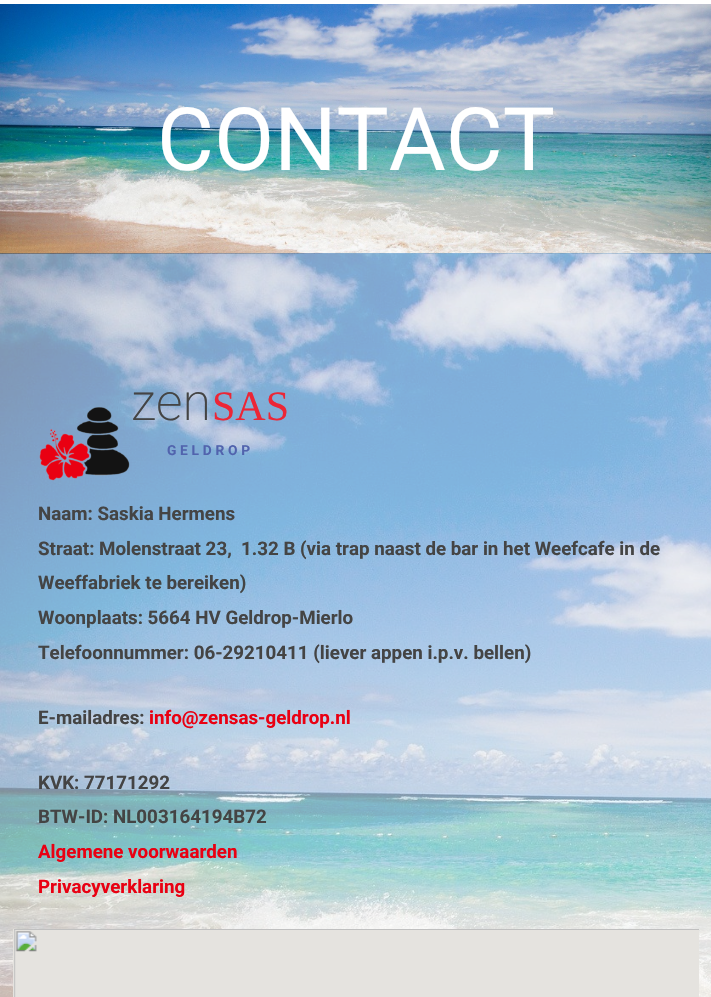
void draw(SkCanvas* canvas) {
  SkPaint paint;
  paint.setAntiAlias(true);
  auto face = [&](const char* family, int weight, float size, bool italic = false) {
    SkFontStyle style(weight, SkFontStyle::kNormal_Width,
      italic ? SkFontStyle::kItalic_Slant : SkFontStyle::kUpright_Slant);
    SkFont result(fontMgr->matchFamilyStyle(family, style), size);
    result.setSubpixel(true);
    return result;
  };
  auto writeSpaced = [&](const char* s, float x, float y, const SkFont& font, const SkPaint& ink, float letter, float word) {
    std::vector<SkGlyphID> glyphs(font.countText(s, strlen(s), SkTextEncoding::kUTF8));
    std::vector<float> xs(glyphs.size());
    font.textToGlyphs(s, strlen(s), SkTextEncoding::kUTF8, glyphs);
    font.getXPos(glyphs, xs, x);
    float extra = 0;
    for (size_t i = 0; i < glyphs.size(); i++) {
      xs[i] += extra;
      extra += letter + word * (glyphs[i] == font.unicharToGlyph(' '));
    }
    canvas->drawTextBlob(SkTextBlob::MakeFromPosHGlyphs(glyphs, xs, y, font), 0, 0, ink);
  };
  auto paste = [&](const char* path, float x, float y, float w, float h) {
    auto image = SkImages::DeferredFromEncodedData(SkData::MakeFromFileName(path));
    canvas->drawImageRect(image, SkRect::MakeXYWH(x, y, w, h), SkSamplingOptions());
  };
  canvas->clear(0xffffffff);
  paste("img/1.png", 0, 253, 711, 1);
  paste("img/2.png", 0, 4, 711, 250);
  paste("img/3.png", 0, 253, 711, 744);
  paste("img/4.png", 39, 407, 91, 74);
  paste("img/5.png", 13, 929, 686, 68);
  auto f0 = face("Roboto", 400, 87.5f);
  paint.setColor(0xffffffff);
  canvas->drawString("CONTACT", 157, 170, f0, paint);
  auto f1 = face("Roboto", 200, 52);
  paint.setColor(0xff444444);
  canvas->drawString("zen", 131, 420, f1, paint);
  auto f2 = face("Liberation Serif", 400, 42);
  paint.setColor(0xffec2636);
  canvas->drawString("SAS", 212, 420, f2, paint);
  auto f3 = face("Roboto", 700, 13.75f);
  paint.setColor(0xff5163ad);
  writeSpaced("GELDROP", 167, 455, f3, paint, 3.75f, 0);
  auto f4 = face("Roboto", 700, 18.75f);
  paint.setColor(0xff444444);
  {
    const struct { const char* s; float x, y; } items[] = {
      {"Naam: Saskia Hermens", 38, 520},
      {"Straat: Molenstraat 23,  1.32 B (via trap naast de bar in het Weefcafe in de", 38, 555},
      {"Weeffabriek te bereiken)", 38, 589},
      {"Woonplaats: 5664 HV Geldrop-Mierlo", 38, 624},
      {"Telefoonnummer: 06-29210411 (liever appen i.p.v. bellen)", 38, 659},
      {"E-mailadres:", 38, 724},
    };
    for (auto [s, x, y] : items) {
      canvas->drawString(s, x, y, f4, paint);
    }
  }
  paint.setColor(0xffe90012);
  canvas->drawString("info@zensas-geldrop.nl", 149, 724, f4, paint);
  paint.setColor(0xff444444);
  canvas->drawString("KVK: 77171292", 38, 789, f4, paint);
  canvas->drawString("BTW-ID: NL003164194B72", 38, 823, f4, paint);
  paint.setColor(0xffe90012);
  canvas->drawString("Algemene voorwaarden", 38, 858, f4, paint);
  canvas->drawString("Privacyverklaring", 38, 893, f4, paint);
}
